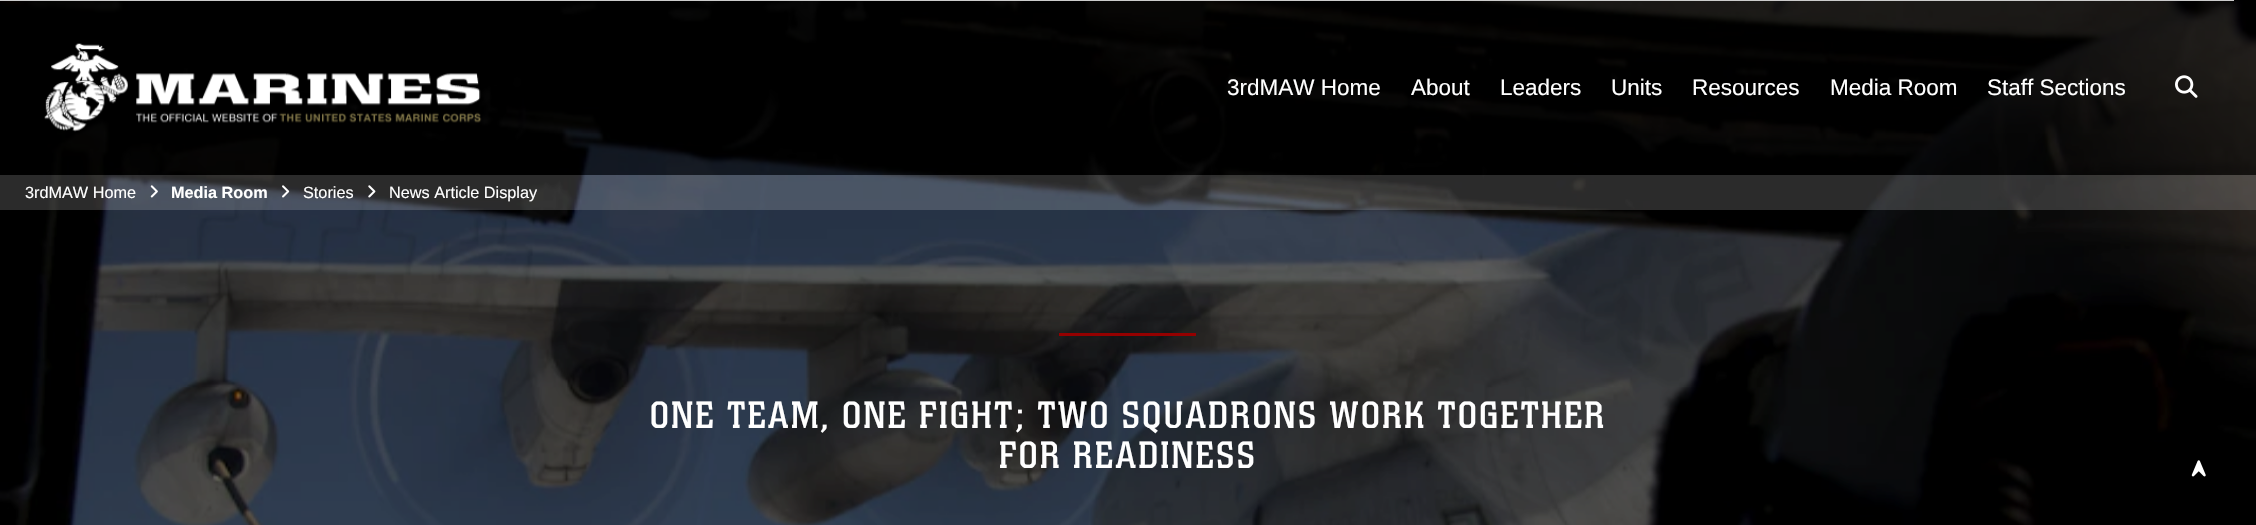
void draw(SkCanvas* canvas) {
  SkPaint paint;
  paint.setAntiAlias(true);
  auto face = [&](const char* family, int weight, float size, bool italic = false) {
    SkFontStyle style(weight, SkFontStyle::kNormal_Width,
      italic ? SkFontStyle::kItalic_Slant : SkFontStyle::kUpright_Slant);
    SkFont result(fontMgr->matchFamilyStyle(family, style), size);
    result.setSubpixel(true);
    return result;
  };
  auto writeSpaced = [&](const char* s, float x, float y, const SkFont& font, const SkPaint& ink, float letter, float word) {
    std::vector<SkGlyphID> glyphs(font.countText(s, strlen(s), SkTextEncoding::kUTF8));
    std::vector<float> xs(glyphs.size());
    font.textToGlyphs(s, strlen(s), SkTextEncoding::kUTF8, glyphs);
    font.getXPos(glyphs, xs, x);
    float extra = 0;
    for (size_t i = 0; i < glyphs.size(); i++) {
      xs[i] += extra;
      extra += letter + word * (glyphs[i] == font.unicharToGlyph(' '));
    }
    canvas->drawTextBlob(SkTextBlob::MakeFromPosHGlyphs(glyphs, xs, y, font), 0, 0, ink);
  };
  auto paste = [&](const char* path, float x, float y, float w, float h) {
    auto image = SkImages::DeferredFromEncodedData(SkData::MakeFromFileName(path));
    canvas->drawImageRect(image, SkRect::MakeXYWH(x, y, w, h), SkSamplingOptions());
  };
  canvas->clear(0xffffffff);
  paste("img/6.png", 0, 0, 2256, 525);
  paint.setColor(0x80000000);
  canvas->drawRect(SkRect::MakeXYWH(0, 0, 2256, 175), paint);
  paint.setColor(0xffcccccc);
  canvas->drawRect(SkRect::MakeXYWH(0, 0, 2234, 1), paint);
  paste("img/1.png", 44, 43, 438, 89);
  paste("img/2.png", 2175, 75, 23, 23);
  paint.setColor(0x2bffffff);
  canvas->drawRect(SkRect::MakeXYWH(0, 175, 2256, 35), paint);
  paste("img/3.png", 150, 185, 8, 13);
  paste("img/4.png", 282, 185, 8, 13);
  paste("img/5.png", 368, 185, 8, 13);
  paint.setColor(0xff940000);
  canvas->drawRect(SkRect::MakeXYWH(1059, 333, 137, 3), paint);
  paste("img/7.png", 2191, 460, 15, 17);
  auto f0 = face("Liberation Sans", 400, 22.5f);
  paint.setColor(0xffffffff);
  {
    const struct { const char* s; float x, y; } items[] = {
      {"3rdMAW Home", 1227, 95},
      {"About", 1411, 95},
      {"Leaders", 1500, 95},
      {"Units", 1611, 95},
      {"Resources", 1692, 95},
      {"Media Room", 1830, 95},
      {"Staff Sections", 1987, 95},
    };
    for (auto [s, x, y] : items) {
      canvas->drawString(s, x, y, f0, paint);
    }
  }
  auto f1 = face("Liberation Sans", 400, 16.25f);
  canvas->drawString("3rdMAW Home", 25, 198, f1, paint);
  auto f2 = face("Liberation Sans", 700, 16.25f);
  canvas->drawString("Media Room", 171, 198, f2, paint);
  canvas->drawString("Stories", 303, 198, f1, paint);
  canvas->drawString("News Article Display", 389, 198, f1, paint);
  auto f3 = face("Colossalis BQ", 400, 37.5f);
  writeSpaced("ONE TEAM, ONE FIGHT; TWO SQUADRONS WORK TOGETHER", 650, 428, f3, paint, 2.5f, 0);
  writeSpaced("FOR READINESS", 999, 468, f3, paint, 2.5f, 0);
}
